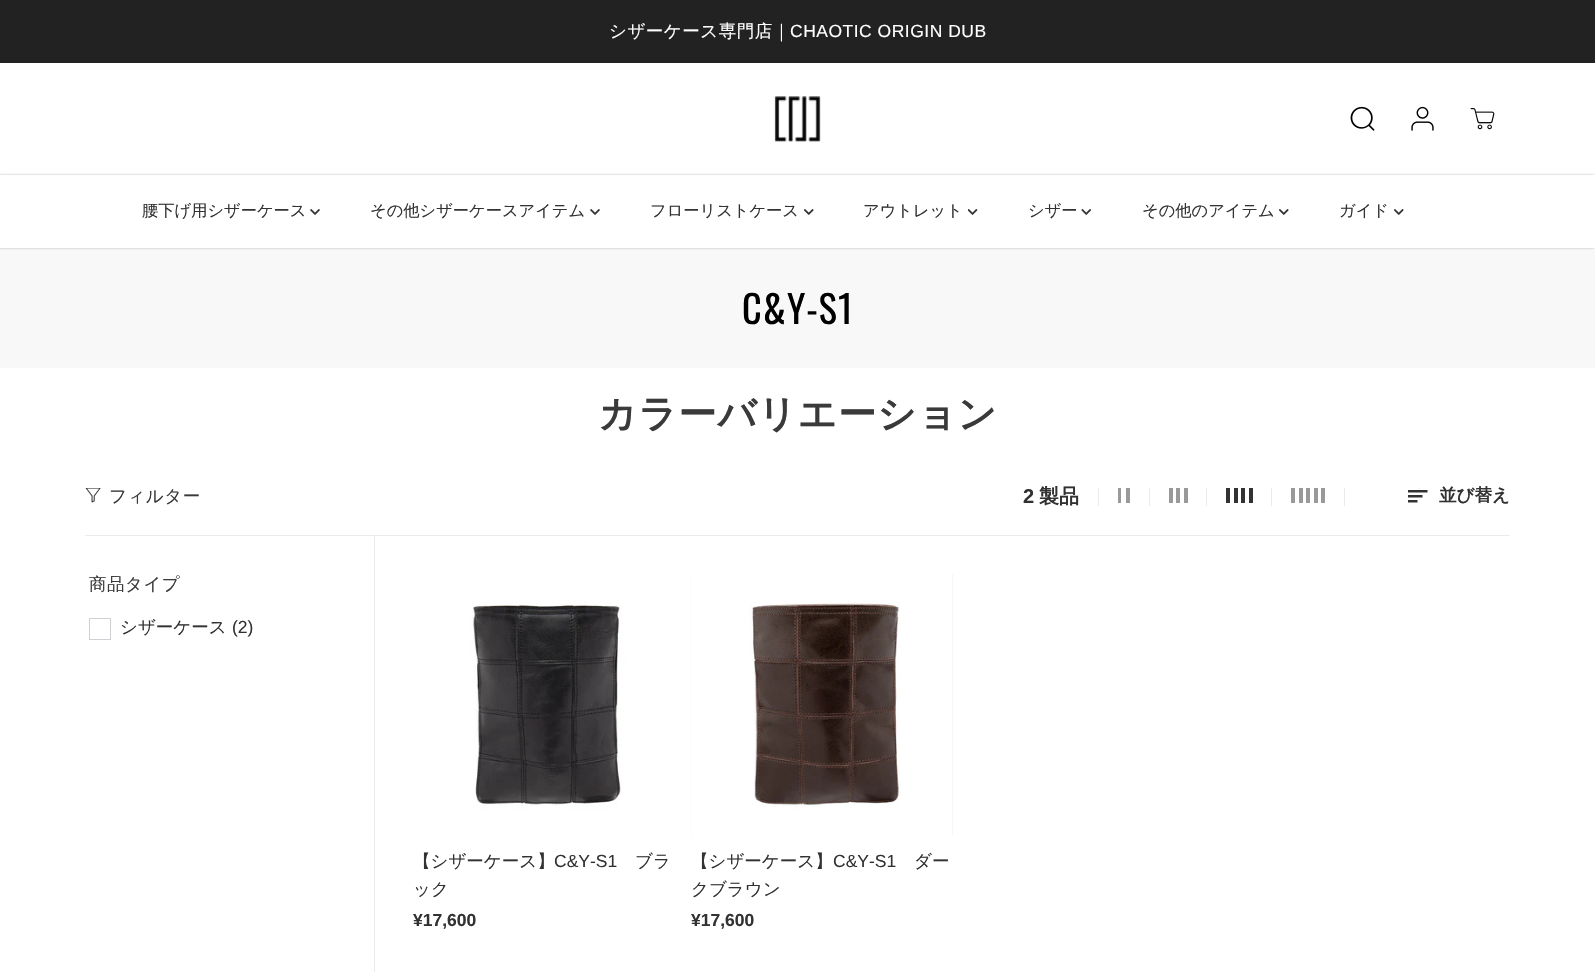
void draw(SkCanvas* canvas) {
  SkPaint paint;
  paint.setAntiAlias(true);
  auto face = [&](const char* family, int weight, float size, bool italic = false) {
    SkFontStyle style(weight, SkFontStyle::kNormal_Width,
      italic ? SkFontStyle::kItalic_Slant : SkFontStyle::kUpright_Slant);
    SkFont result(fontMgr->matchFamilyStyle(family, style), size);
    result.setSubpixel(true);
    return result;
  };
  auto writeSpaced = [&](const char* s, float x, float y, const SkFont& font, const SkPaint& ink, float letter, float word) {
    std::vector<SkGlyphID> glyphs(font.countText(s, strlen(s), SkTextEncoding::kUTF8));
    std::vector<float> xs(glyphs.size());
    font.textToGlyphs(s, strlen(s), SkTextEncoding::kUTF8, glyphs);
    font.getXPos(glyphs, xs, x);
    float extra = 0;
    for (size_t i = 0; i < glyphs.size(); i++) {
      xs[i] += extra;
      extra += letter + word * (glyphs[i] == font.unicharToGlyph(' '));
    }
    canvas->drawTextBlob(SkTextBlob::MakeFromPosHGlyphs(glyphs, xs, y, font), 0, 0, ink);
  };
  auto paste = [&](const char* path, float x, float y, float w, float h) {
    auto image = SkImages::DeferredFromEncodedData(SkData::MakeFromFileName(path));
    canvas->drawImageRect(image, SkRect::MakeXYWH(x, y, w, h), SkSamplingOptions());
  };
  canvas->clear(0xffffffff);
  paint.setColor(0xff222222);
  canvas->drawRect(SkRect::MakeXYWH(0, 0, 1595, 63), paint);
  paste("img/1.png", 774, 96, 47, 46);
  paste("img/2.png", 1350, 106, 25, 25);
  paste("img/3.png", 1411, 106, 23, 25);
  paste("img/4.png", 1470, 108, 25, 22);
  paint.setColor(0xfff8f8f8);
  canvas->drawRect(SkRect::MakeXYWH(0, 248, 1595, 120), paint);
  paint.setColor(0x4d000000);
  paint.setMaskFilter(SkMaskFilter::MakeBlur(kNormal_SkBlurStyle, 1));
  canvas->drawRect(SkRect::MakeXYWH(-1, 175, 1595, 73), paint);
  paint.setMaskFilter(nullptr);
  paint.setColor(0xffffffff);
  canvas->drawRect(SkRect::MakeXYWH(0, 175, 1595, 73), paint);
  paste("img/5.png", 310, 209, 10, 6);
  paste("img/5.png", 590, 209, 10, 6);
  paste("img/6.png", 804, 209, 10, 6);
  paste("img/7.png", 968, 209, 10, 6);
  paste("img/8.png", 1081, 209, 10, 6);
  paste("img/6.png", 1279, 209, 10, 6);
  paste("img/6.png", 1394, 209, 10, 6);
  paint.setColor(0xffebebeb);
  canvas->drawRect(SkRect::MakeXYWH(85, 535, 1425, 1), paint);
  paste("img/9.png", 85, 488, 16, 15);
  {
    const struct { float x, y, w, h; SkColor color; } items[] = {
      {1149, 488, 1, 18, 0xffebebeb},
      {1098, 488, 1, 18, 0xffebebeb},
      {1118, 488, 3, 15, 0xff999999},
      {1126, 488, 4, 15, 0xff999999},
      {1206, 488, 1, 18, 0xffebebeb},
      {1169, 488, 4, 15, 0xff999999},
      {1176, 488, 4, 15, 0xff999999},
      {1184, 488, 4, 15, 0xff999999},
      {1271, 488, 1, 18, 0xffebebeb},
      {1226, 488, 4, 15, 0xff333232},
      {1234, 488, 4, 15, 0xff333232},
      {1241, 488, 4, 15, 0xff333232},
      {1249, 488, 4, 15, 0xff333232},
      {1344, 488, 1, 18, 0xffebebeb},
      {1291, 488, 4, 15, 0xff999999},
      {1299, 488, 4, 15, 0xff999999},
      {1306, 488, 4, 15, 0xff999999},
      {1314, 488, 4, 15, 0xff999999},
      {1321, 488, 4, 15, 0xff999999},
    };
    for (auto [x, y, w, h, color] : items) {
      paint.setColor(color);
      canvas->drawRect(SkRect::MakeXYWH(x, y, w, h), paint);
    }
  }
  paste("img/10.png", 1408, 490, 20, 13);
  paint.setColor(0xffebebeb);
  canvas->drawRect(SkRect::MakeXYWH(374, 536, 1, 436), paint);
  paint.setStroke(true);
  paint.setStrokeWidth(1);
  paint.setColor(0xffd2cfd5);
  canvas->drawRect(SkRect::MakeXYWH(89.5f, 618.5f, 21, 21), paint);
  paste("img/11.png", 413, 574, 261, 261);
  paint.setStroke(false);
  paint.setColor(0xfff3efec);
  canvas->drawRect(SkRect::MakeXYWH(691, 574, 262, 261), paint);
  paste("img/12.png", 691, 574, 262, 261);
  auto f0 = face("WenQuanYi Zen Hei", 500, 17.5f);
  paint.setColor(0xffffffff);
  writeSpaced("シザーケース専門店｜", 609, 37, f0, paint, 0.5f, 0);
  auto f1 = face("Liberation Sans", 400, 17.5f);
  writeSpaced("CHAOTIC ORIGIN DUB", 790, 37, f1, paint, 0.5f, 0);
  auto f2 = face("WenQuanYi Zen Hei", 500, 16.25f);
  paint.setColor(0xff333232);
  {
    const struct { const char* s; float x, y; } items[] = {
      {"腰下げ用シザーケース", 142, 216},
      {"その他シザーケースアイテム", 370, 216},
      {"フローリストケース", 650, 216},
      {"アウトレット", 863, 216},
      {"シザー", 1028, 216},
      {"その他のアイテム", 1142, 216},
      {"ガイド", 1339, 216},
    };
    for (auto [s, x, y] : items) {
      canvas->drawString(s, x, y, f2, paint);
    }
  }
  auto f3 = face("Oswald", 400, 38.25f);
  paint.setColor(0xff000000);
  writeSpaced("C&Y-S1", 742, 324, f3, paint, 1, 0);
  auto f4 = face("WenQuanYi Zen Hei", 700, 38.25f);
  paint.setColor(0xff3a3a3a);
  writeSpaced("カラーバリエーション", 598, 427, f4, paint, 1, 0);
  writeSpaced("フィルター", 109, 502, f0, paint, 0.5f, 0);
  auto f5 = face("Liberation Sans", 700, 20);
  paint.setColor(0xff333232);
  canvas->drawString("2", 1023, 503, f5, paint);
  auto f6 = face("WenQuanYi Zen Hei", 700, 20);
  canvas->drawString("製品", 1039, 503, f6, paint);
  auto f7 = face("WenQuanYi Zen Hei", 700, 17.5f);
  canvas->drawString("並び替え", 1439, 501, f7, paint);
  paint.setColor(0xff3a3a3a);
  writeSpaced("商品タイプ", 89, 590, f0, paint, 0.5f, 0);
  paint.setColor(0xff333232);
  canvas->drawString("シザーケース", 120, 633, f0, paint);
  canvas->drawString("(2)", 232, 633, f1, paint);
  canvas->drawString("【シザーケース】", 413, 867, f0, paint);
  canvas->drawString("C&Y-S1", 554, 867, f1, paint);
  canvas->drawString("ブラ", 635, 867, f0, paint);
  canvas->drawString("ック", 413, 895, f0, paint);
  auto f8 = face("Liberation Sans", 700, 17.5f);
  canvas->drawString("¥17,600", 413, 926, f8, paint);
  canvas->drawString("【シザーケース】", 691, 867, f0, paint);
  canvas->drawString("C&Y-S1", 833, 867, f1, paint);
  canvas->drawString("ダー", 914, 867, f0, paint);
  canvas->drawString("クブラウン", 691, 895, f0, paint);
  canvas->drawString("¥17,600", 691, 926, f8, paint);
}
